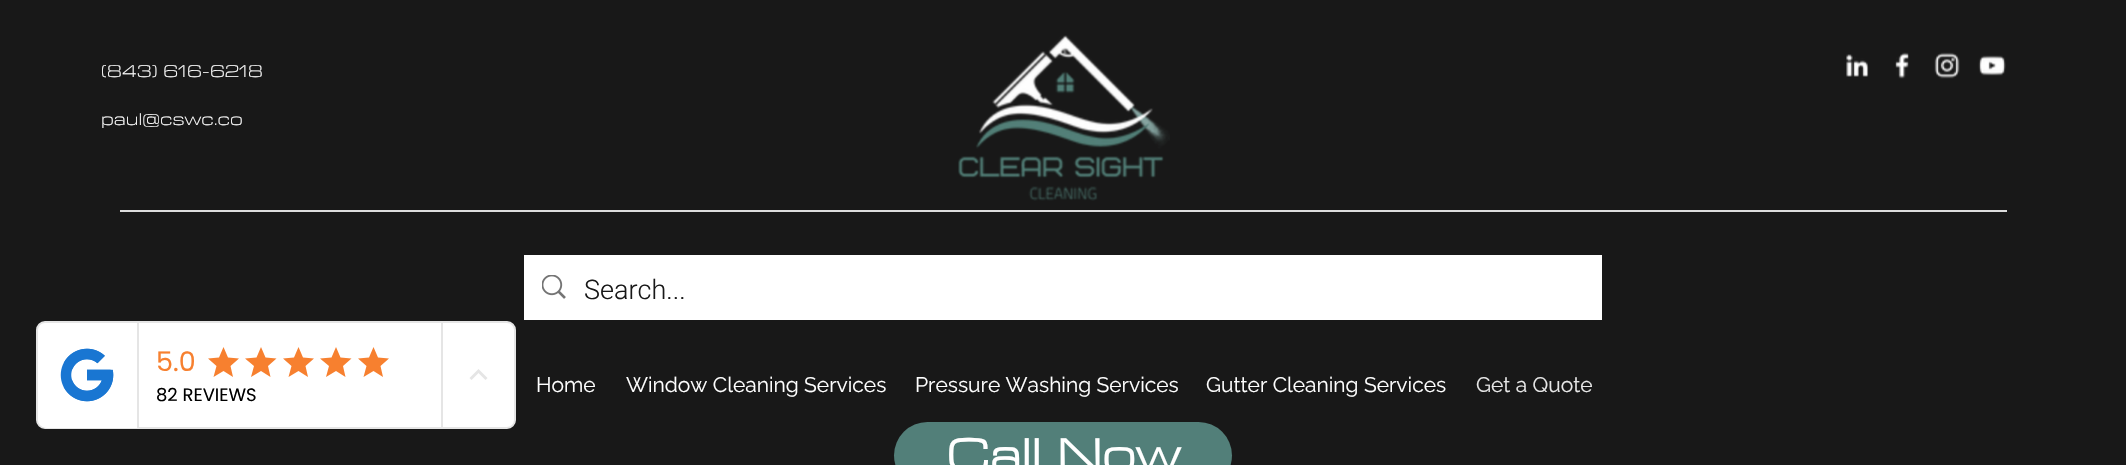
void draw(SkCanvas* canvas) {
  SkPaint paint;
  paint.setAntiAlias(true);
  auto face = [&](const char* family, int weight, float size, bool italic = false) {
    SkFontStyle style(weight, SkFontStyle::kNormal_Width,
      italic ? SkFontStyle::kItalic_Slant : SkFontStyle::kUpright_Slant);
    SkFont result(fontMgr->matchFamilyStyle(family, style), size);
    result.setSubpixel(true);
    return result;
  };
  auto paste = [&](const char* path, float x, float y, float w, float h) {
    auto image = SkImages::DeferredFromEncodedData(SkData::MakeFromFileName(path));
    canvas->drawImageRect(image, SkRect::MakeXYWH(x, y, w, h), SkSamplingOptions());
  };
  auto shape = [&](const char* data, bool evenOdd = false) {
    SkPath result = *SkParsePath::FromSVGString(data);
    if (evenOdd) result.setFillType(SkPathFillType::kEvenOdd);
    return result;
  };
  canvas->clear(0xff181818);
  paste("img/1.png", 1846, 54, 23, 23);
  paste("img/2.png", 1895, 52, 14, 27);
  paste("img/3.png", 1934, 52, 26, 27);
  paste("img/4.png", 1978, 55, 28, 21);
  paste("img/5.png", 958, 35, 212, 166);
  paint.setColor(0xffdcdcdc);
  canvas->drawRect(SkRect::MakeXYWH(120, 210, 1887, 2), paint);
  paint.setColor(0xffffffff);
  canvas->drawRect(SkRect::MakeXYWH(524, 255, 1078, 65), paint);
  paste("img/6.png", 542, 275, 24, 24);
  paint.setColor(0xff527f79);
  canvas->drawRoundRect(SkRect::MakeXYWH(894, 422, 338, 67), 33.5f, 33.5f, paint);
  paint.setColor(0xffffffff);
  canvas->drawRoundRect(SkRect::MakeXYWH(37, 322, 478, 106), 8, 8, paint);
  paint.setStroke(true);
  paint.setStrokeWidth(2);
  paint.setColor(0xffe5e5e5);
  canvas->drawRoundRect(SkRect::MakeXYWH(37, 322, 478, 106), 8, 8, paint);
  paint.setStroke(false);
  paint.setColor(0xffffffff);
  canvas->drawPath(shape("M47 323H138V428H47C42 428 38 424 38 419V332C38 327 42 323 47 323Z"), paint);
  paint.setColor(0xffe5e5e5);
  canvas->drawRect(SkRect::MakeXYWH(137, 323, 2, 105), paint);
  paste("img/7.png", 60, 348, 54, 54);
  canvas->drawRect(SkRect::MakeXYWH(441, 323, 2, 105), paint);
  paint.setColor(0xfff7802f);
  canvas->drawPath(shape("M223.5 371L233 377L230.5 366L239 358.5L228 357.5L223.5 347L219 357.5L208 358.5L216.5 366L213.5 377Z"), paint);
  canvas->drawPath(shape("M261 371L270.5 377L268 366L276.5 358.5L265.5 357.5L261 347L256.5 357.5L245 358.5L254 366L251 377Z"), paint);
  canvas->drawPath(shape("M298.5 371L308 377L305.5 366L314 358.5L303 357.5L298.5 347L294 357.5L283 358.5L291.5 366L288.5 377Z"), paint);
  canvas->drawPath(shape("M336 371L345.5 377L343 366L351.5 358.5L340.5 357.5L336 347L331.5 357.5L320 358.5L329 366L326 377Z"), paint);
  canvas->drawPath(shape("M373.5 371L383 377L380.5 366L389 358.5L378 357.5L373.5 347L369 357.5L358 358.5L366.5 366L363.5 377Z"), paint);
  paint.setColor(0xffe5e5e5);
  canvas->drawPath(shape("M471.5 380L478.5 373L485.5 380L487.5 378L478.5 369L469.5 378Z"), paint);
  auto f0 = face("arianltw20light", 300, 21);
  paint.setColor(0xffffffff);
  canvas->drawString("(843) 616-6218", 101, 77, f0, paint);
  canvas->drawString("paul@cswc.co", 101, 125, f0, paint);
  auto f1 = face("Heebo", 300, 27);
  paint.setColor(0xff181818);
  canvas->drawString("Search...", 584, 299, f1, paint);
  auto f2 = face("Raleway", 400, 21);
  paint.setColor(0xffffffff);
  {
    const struct { const char* s; float x, y; } items[] = {
      {"Home", 536, 392},
      {"Window Cleaning Services", 626, 392},
      {"Pressure Washing Services", 915, 392},
      {"Gutter Cleaning Services", 1206, 392},
    };
    for (auto [s, x, y] : items) {
      canvas->drawString(s, x, y, f2, paint);
    }
  }
  paint.setColor(0xffe7e7e7);
  canvas->drawString("Get a Quote", 1476, 392, f2, paint);
  auto f3 = face("arianltw20light", 700, 55.5f);
  paint.setColor(0xffffffff);
  canvas->drawString("Call Now", 946, 471, f3, paint);
  auto f4 = face("Poppins", 400, 27);
  paint.setColor(0xfff7802f);
  canvas->drawString("5.0", 156, 371, f4, paint);
  auto f5 = face("Poppins", 400, 18);
  paint.setColor(0xff000000);
  canvas->drawString("82 REVIEWS", 156, 401, f5, paint);
}
